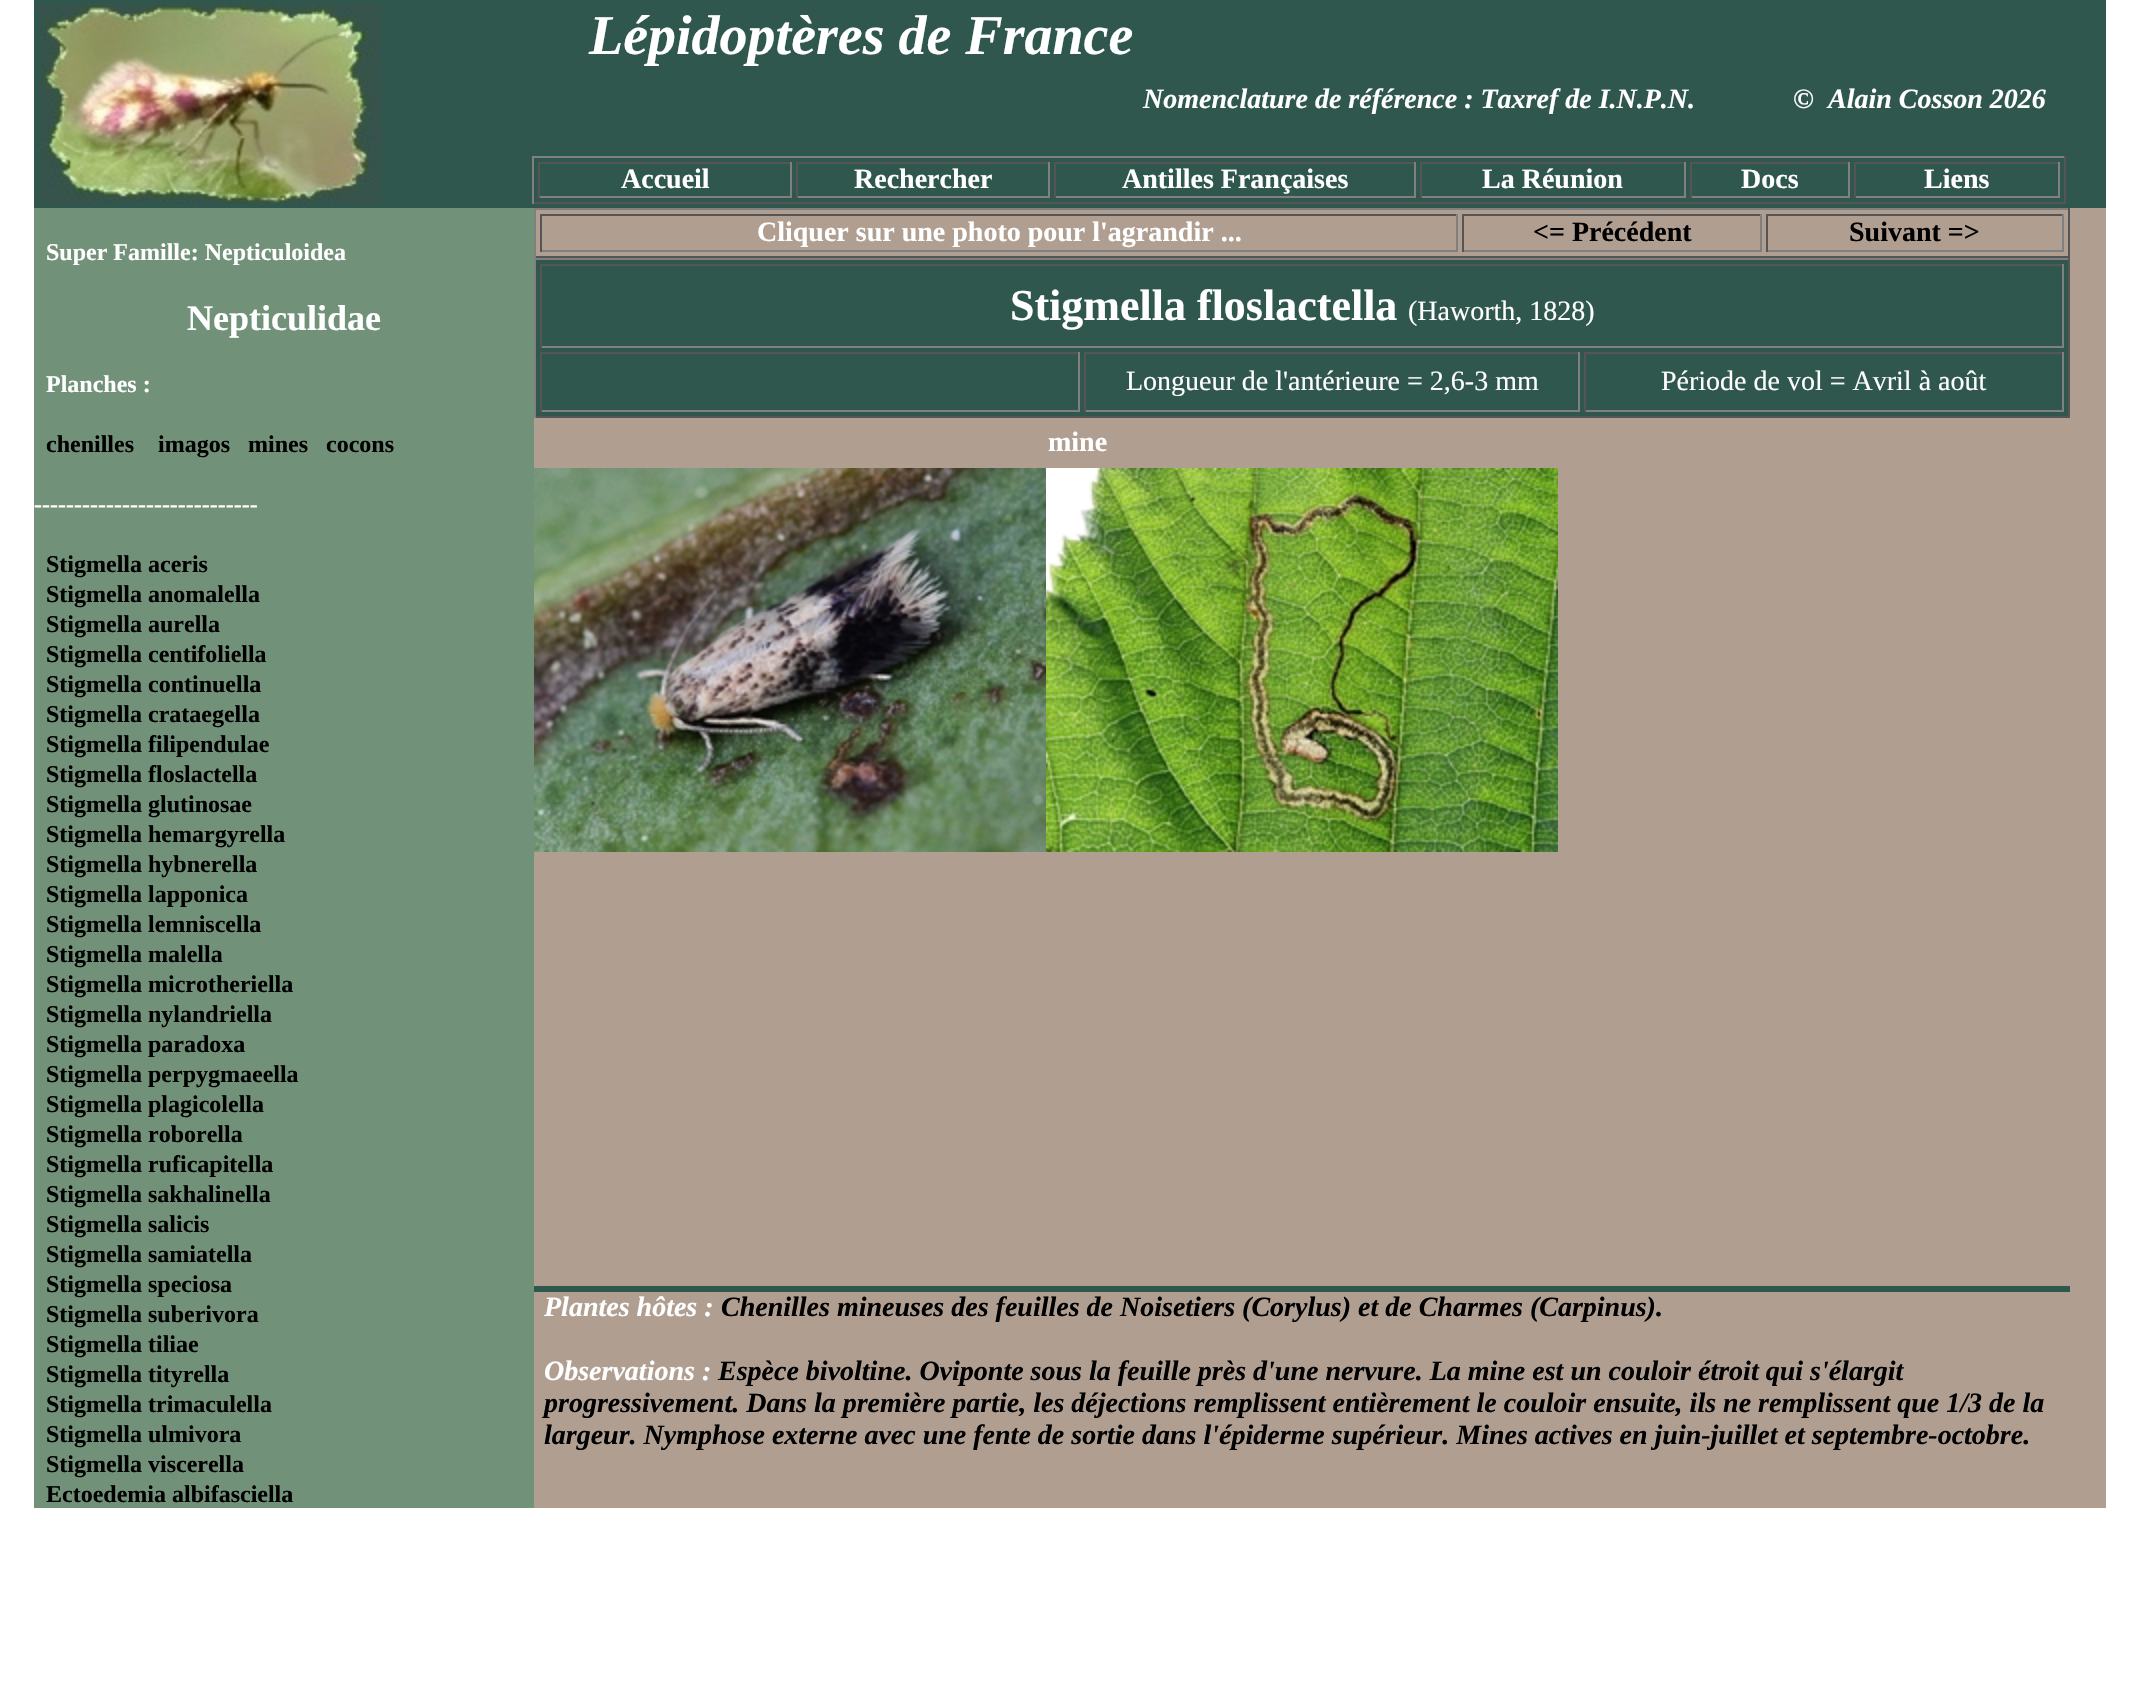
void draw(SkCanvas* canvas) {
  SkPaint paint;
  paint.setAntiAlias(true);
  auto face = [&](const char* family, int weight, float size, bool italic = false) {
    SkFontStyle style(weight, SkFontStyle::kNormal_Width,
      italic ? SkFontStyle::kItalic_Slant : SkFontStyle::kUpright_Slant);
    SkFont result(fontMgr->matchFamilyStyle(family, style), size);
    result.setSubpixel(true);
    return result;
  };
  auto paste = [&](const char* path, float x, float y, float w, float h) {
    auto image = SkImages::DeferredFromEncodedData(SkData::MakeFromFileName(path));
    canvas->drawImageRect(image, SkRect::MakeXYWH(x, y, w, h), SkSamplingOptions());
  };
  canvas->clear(0xffffffff);
  paint.setColor(0xff2f574d);
  canvas->drawRect(SkRect::MakeXYWH(34, 0, 2072, 208), paint);
  paste("img/1.png", 38, 4, 344, 200);
  {
    const struct { float x, y, w, h; SkColor color; } items[] = {
      {532, 156, 1534, 2, 0xff808080},
      {2064, 156, 2, 48, 0xff555555},
      {532, 202, 1534, 2, 0xff555555},
      {532, 156, 2, 48, 0xff808080},
      {538, 162, 254, 2, 0xff555555},
      {790, 162, 2, 36, 0xff808080},
      {538, 196, 254, 2, 0xff808080},
      {538, 162, 2, 36, 0xff555555},
      {796, 162, 254, 2, 0xff555555},
      {1048, 162, 2, 36, 0xff808080},
      {796, 196, 254, 2, 0xff808080},
      {796, 162, 2, 36, 0xff555555},
      {1054, 162, 362, 2, 0xff555555},
      {1414, 162, 2, 36, 0xff808080},
      {1054, 196, 362, 2, 0xff808080},
      {1054, 162, 2, 36, 0xff555555},
      {1420, 162, 266, 2, 0xff555555},
      {1684, 162, 2, 36, 0xff808080},
      {1420, 196, 266, 2, 0xff808080},
      {1420, 162, 2, 36, 0xff555555},
      {1690, 162, 160, 2, 0xff555555},
      {1848, 162, 2, 36, 0xff808080},
      {1690, 196, 160, 2, 0xff808080},
      {1690, 162, 2, 36, 0xff555555},
      {1854, 162, 206, 2, 0xff555555},
      {2058, 162, 2, 36, 0xff808080},
      {1854, 196, 206, 2, 0xff808080},
      {1854, 162, 2, 36, 0xff555555},
      {34, 208, 500, 1300, 0xff729179},
      {534, 208, 1572, 1300, 0xffb09f91},
      {534, 208, 1536, 2, 0xff808080},
      {2068, 208, 2, 50, 0xff555555},
      {534, 256, 1536, 2, 0xff555555},
      {534, 208, 2, 50, 0xff808080},
      {540, 214, 918, 2, 0xff555555},
      {1456, 214, 2, 38, 0xff808080},
      {540, 250, 918, 2, 0xff808080},
      {540, 214, 2, 38, 0xff555555},
      {1462, 214, 300, 2, 0xff555555},
      {1760, 214, 2, 38, 0xff808080},
      {1462, 250, 300, 2, 0xff808080},
      {1462, 214, 2, 38, 0xff555555},
      {1766, 214, 298, 2, 0xff555555},
      {2062, 214, 2, 38, 0xff808080},
      {1766, 250, 298, 2, 0xff808080},
      {1766, 214, 2, 38, 0xff555555},
      {536, 260, 1532, 156, 0xff2f574d},
      {534, 258, 1536, 2, 0xff808080},
      {2068, 258, 2, 160, 0xff555555},
      {534, 416, 1536, 2, 0xff555555},
      {534, 258, 2, 160, 0xff808080},
      {540, 264, 1524, 2, 0xff555555},
      {2062, 264, 2, 84, 0xff808080},
      {540, 346, 1524, 2, 0xff808080},
      {540, 264, 2, 84, 0xff555555},
      {540, 352, 540, 2, 0xff555555},
      {1078, 352, 2, 60, 0xff808080},
      {540, 410, 540, 2, 0xff808080},
      {540, 352, 2, 60, 0xff555555},
      {1084, 352, 496, 2, 0xff555555},
      {1578, 352, 2, 60, 0xff808080},
      {1084, 410, 496, 2, 0xff808080},
      {1084, 352, 2, 60, 0xff555555},
      {1584, 352, 480, 2, 0xff555555},
      {2062, 352, 2, 60, 0xff808080},
      {1584, 410, 480, 2, 0xff808080},
      {1584, 352, 2, 60, 0xff555555},
    };
    for (auto [x, y, w, h, color] : items) {
      paint.setColor(color);
      canvas->drawRect(SkRect::MakeXYWH(x, y, w, h), paint);
    }
  }
  paste("img/2.png", 534, 468, 512, 384);
  paste("img/3.png", 1046, 468, 512, 384);
  paint.setColor(0xff2f574d);
  canvas->drawRect(SkRect::MakeXYWH(534, 1286, 1536, 6), paint);
  auto f0 = face("Liberation Serif", 700, 56, true);
  paint.setColor(0xffffffff);
  canvas->drawString("Lépidoptères de France", 589, 54, f0, paint);
  auto f1 = face("Liberation Serif", 700, 28, true);
  canvas->drawString("Nomenclature de référence : Taxref de I.N.P.N.              ©  Alain Cosson 2026", 1143, 108, f1, paint);
  auto f2 = face("Liberation Serif", 700, 28);
  {
    const struct { const char* s; float x, y; } items[] = {
      {"Accueil", 621, 188},
      {"Rechercher", 854, 188},
      {"Antilles Françaises", 1122, 188},
      {"La Réunion", 1482, 188},
      {"Docs", 1741, 188},
      {"Liens", 1924, 188},
    };
    for (auto [s, x, y] : items) {
      canvas->drawString(s, x, y, f2, paint);
    }
  }
  auto f3 = face("Liberation Serif", 700, 24);
  canvas->drawString("Super Famille: Nepticuloidea", 46, 260, f3, paint);
  auto f4 = face("Liberation Serif", 700, 36);
  canvas->drawString("Nepticulidae", 187, 330, f4, paint);
  canvas->drawString("Planches :", 46, 392, f3, paint);
  paint.setColor(0xff000000);
  {
    const struct { const char* s; float x, y; } items[] = {
      {"chenilles", 46, 452},
      {"imagos", 158, 452},
      {"mines", 248, 452},
      {"cocons", 326, 452},
    };
    for (auto [s, x, y] : items) {
      canvas->drawString(s, x, y, f3, paint);
    }
  }
  paint.setColor(0xffffffff);
  canvas->drawString("----------------------------", 34, 512, f3, paint);
  paint.setColor(0xff000000);
  {
    const struct { const char* s; float x, y; } items[] = {
      {"Stigmella aceris", 46, 572},
      {"Stigmella anomalella", 46, 602},
      {"Stigmella aurella", 46, 632},
      {"Stigmella centifoliella", 46, 662},
      {"Stigmella continuella", 46, 692},
      {"Stigmella crataegella", 46, 722},
      {"Stigmella filipendulae", 46, 752},
      {"Stigmella floslactella", 46, 782},
      {"Stigmella glutinosae", 46, 812},
      {"Stigmella hemargyrella", 46, 842},
      {"Stigmella hybnerella", 46, 872},
      {"Stigmella lapponica", 46, 902},
      {"Stigmella lemniscella", 46, 932},
      {"Stigmella malella", 46, 962},
      {"Stigmella microtheriella", 46, 992},
      {"Stigmella nylandriella", 46, 1022},
      {"Stigmella paradoxa", 46, 1052},
      {"Stigmella perpygmaeella", 46, 1082},
      {"Stigmella plagicolella", 46, 1112},
      {"Stigmella roborella", 46, 1142},
      {"Stigmella ruficapitella", 46, 1172},
      {"Stigmella sakhalinella", 46, 1202},
      {"Stigmella salicis", 46, 1232},
      {"Stigmella samiatella", 46, 1262},
      {"Stigmella speciosa", 46, 1292},
      {"Stigmella suberivora", 46, 1322},
      {"Stigmella tiliae", 46, 1352},
      {"Stigmella tityrella", 46, 1382},
      {"Stigmella trimaculella", 46, 1412},
      {"Stigmella ulmivora", 46, 1442},
      {"Stigmella viscerella", 46, 1472},
      {"Ectoedemia albifasciella", 46, 1502},
    };
    for (auto [s, x, y] : items) {
      canvas->drawString(s, x, y, f3, paint);
    }
  }
  paint.setColor(0xffffffff);
  canvas->drawString("Cliquer sur une photo pour l'agrandir ...", 757, 241, f2, paint);
  paint.setColor(0xff000000);
  canvas->drawString("<= Précédent", 1533, 241, f2, paint);
  canvas->drawString("Suivant =>", 1849, 241, f2, paint);
  auto f5 = face("Liberation Serif", 700, 44);
  paint.setColor(0xffffffff);
  canvas->drawString("Stigmella floslactella", 1010, 320, f5, paint);
  auto f6 = face("Liberation Serif", 400, 28);
  {
    const struct { const char* s; float x, y; } items[] = {
      {"(Haworth, 1828)", 1408, 320},
      {"Longueur de l'antérieure = 2,6-3 mm", 1126, 390},
      {"Période de vol = Avril à août", 1661, 390},
    };
    for (auto [s, x, y] : items) {
      canvas->drawString(s, x, y, f6, paint);
    }
  }
  canvas->drawString("mine", 1048, 451, f2, paint);
  canvas->drawString("Plantes hôtes :", 544, 1316, f1, paint);
  paint.setColor(0xff000000);
  canvas->drawString("Chenilles mineuses des feuilles de Noisetiers (Corylus) et de Charmes (Carpinus).", 721, 1316, f1, paint);
  paint.setColor(0xffffffff);
  canvas->drawString("Observations :", 544, 1380, f1, paint);
  paint.setColor(0xff000000);
  {
    const struct { const char* s; float x, y; } items[] = {
      {"Espèce bivoltine. Oviponte sous la feuille près d'une nervure. La mine est un couloir étroit qui s'élargit", 718, 1380},
      {"progressivement. Dans la première partie, les déjections remplissent entièrement le couloir ensuite, ils ne remplissent que 1/3 de la", 544, 1412},
      {"largeur. Nymphose externe avec une fente de sortie dans l'épiderme supérieur. Mines actives en juin-juillet et septembre-octobre.", 544, 1444},
    };
    for (auto [s, x, y] : items) {
      canvas->drawString(s, x, y, f1, paint);
    }
  }
}
